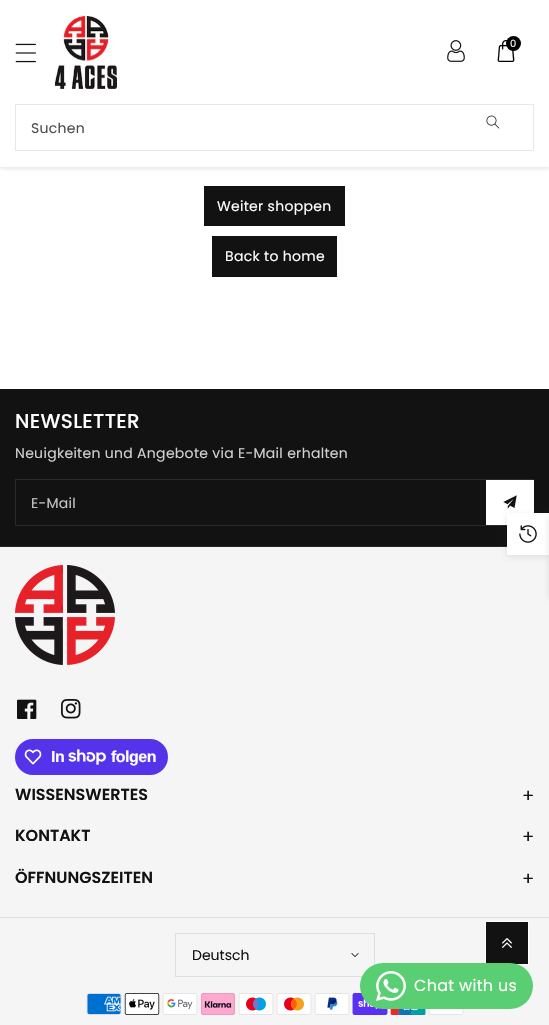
void draw(SkCanvas* canvas) {
  SkPaint paint;
  paint.setAntiAlias(true);
  auto face = [&](const char* family, int weight, float size, bool italic = false) {
    SkFontStyle style(weight, SkFontStyle::kNormal_Width,
      italic ? SkFontStyle::kItalic_Slant : SkFontStyle::kUpright_Slant);
    SkFont result(fontMgr->matchFamilyStyle(family, style), size);
    result.setSubpixel(true);
    return result;
  };
  auto writeSpaced = [&](const char* s, float x, float y, const SkFont& font, const SkPaint& ink, float letter, float word) {
    std::vector<SkGlyphID> glyphs(font.countText(s, strlen(s), SkTextEncoding::kUTF8));
    std::vector<float> xs(glyphs.size());
    font.textToGlyphs(s, strlen(s), SkTextEncoding::kUTF8, glyphs);
    font.getXPos(glyphs, xs, x);
    float extra = 0;
    for (size_t i = 0; i < glyphs.size(); i++) {
      xs[i] += extra;
      extra += letter + word * (glyphs[i] == font.unicharToGlyph(' '));
    }
    canvas->drawTextBlob(SkTextBlob::MakeFromPosHGlyphs(glyphs, xs, y, font), 0, 0, ink);
  };
  auto paste = [&](const char* path, float x, float y, float w, float h) {
    auto image = SkImages::DeferredFromEncodedData(SkData::MakeFromFileName(path));
    canvas->drawImageRect(image, SkRect::MakeXYWH(x, y, w, h), SkSamplingOptions());
  };
  canvas->clear(0xffffffff);
  paint.setColor(0x1a121212);
  paint.setMaskFilter(SkMaskFilter::MakeBlur(kNormal_SkBlurStyle, 2));
  canvas->drawRect(SkRect::MakeXYWH(0, 2, 549, 167), paint);
  paint.setMaskFilter(nullptr);
  paint.setColor(0xffffffff);
  canvas->drawRect(SkRect::MakeXYWH(0, 0, 549, 167), paint);
  paste("img/1.png", 55, 16, 62, 73);
  paste("img/2.png", 15, 43, 21, 20);
  paste("img/3.png", 447, 40, 18, 22);
  paste("img/4.png", 497, 40, 18, 22);
  paint.setColor(0xff000000);
  canvas->drawCircle(513.5f, 43.5f, 7.5f, paint);
  paste("img/5.png", 486, 115, 14, 14);
  paint.setStroke(true);
  paint.setStrokeWidth(1);
  paint.setColor(0xffe7e7e7);
  canvas->drawRect(SkRect::MakeXYWH(15.5f, 104.5f, 518, 46), paint);
  paint.setStroke(false);
  {
    const struct { float x, y, w, h; SkColor color; } items[] = {
      {204, 186, 141, 40, 0xff121212},
      {212, 236, 125, 41, 0xff121212},
      {0, 547, 549, 478, 0xfff5f5f5},
      {0, 389, 549, 157, 0xff121212},
      {0, 546, 507, 1, 0xff272727},
      {486, 480, 48, 45, 0xffffffff},
    };
    for (auto [x, y, w, h, color] : items) {
      paint.setColor(color);
      canvas->drawRect(SkRect::MakeXYWH(x, y, w, h), paint);
    }
  }
  paste("img/6.png", 503, 495, 14, 14);
  paint.setStroke(true);
  paint.setColor(0x1affffff);
  canvas->drawRect(SkRect::MakeXYWH(15.5f, 479.5f, 518, 46), paint);
  paste("img/7.png", 15, 565, 100, 100);
  paste("img/8.png", 17, 699, 20, 20);
  paste("img/9.png", 61, 699, 20, 20);
  paint.setStroke(false);
  paint.setColor(0xff5433eb);
  canvas->drawRoundRect(SkRect::MakeXYWH(15, 739, 153, 36), 18, 18, paint);
  paste("img/10.png", 24, 749, 18, 16);
  paste("img/11.png", 68, 749, 38, 16);
  paint.setColor(0xffdedede);
  canvas->drawRect(SkRect::MakeXYWH(0, 917, 549, 1), paint);
  paste("img/12.png", 351, 953, 8, 4);
  paint.setStroke(true);
  canvas->drawRect(SkRect::MakeXYWH(175.5f, 933.5f, 199, 43), paint);
  paste("img/13.png", 86, 993, 36, 22);
  paste("img/14.png", 124, 993, 36, 22);
  paste("img/15.png", 162, 993, 36, 22);
  paste("img/16.png", 201, 993, 34, 22);
  paste("img/17.png", 238, 993, 36, 22);
  paste("img/18.png", 276, 993, 36, 22);
  paste("img/19.png", 314, 993, 36, 22);
  paste("img/20.png", 352, 993, 36, 22);
  paste("img/21.png", 390, 1009, 36, 6);
  paste("img/22.png", 428, 1009, 36, 6);
  paint.setStroke(false);
  paint.setColor(0xff121212);
  canvas->drawRect(SkRect::MakeXYWH(485.5f, 921.5f, 43, 43), paint);
  paint.setStroke(true);
  paint.setColor(0xffffffff);
  canvas->drawRect(SkRect::MakeXYWH(485.5f, 921.5f, 43, 43), paint);
  paste("img/23.png", 502, 938, 10, 10);
  paint.setStroke(false);
  paint.setColor(0x1a121212);
  paint.setMaskFilter(SkMaskFilter::MakeBlur(kNormal_SkBlurStyle, 3.5f));
  canvas->drawRect(SkRect::MakeXYWH(507, 515, 42, 42), paint);
  paint.setMaskFilter(nullptr);
  paint.setColor(0xffffffff);
  canvas->drawRect(SkRect::MakeXYWH(507, 513, 42, 42), paint);
  paste("img/24.png", 519, 525, 18, 18);
  paint.setColor(0x1a121212);
  paint.setMaskFilter(SkMaskFilter::MakeBlur(kNormal_SkBlurStyle, 3.5f));
  canvas->drawRect(SkRect::MakeXYWH(549, 515, 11, 84), paint);
  paint.setMaskFilter(nullptr);
  paint.setColor(0xff59ce72);
  canvas->drawRoundRect(SkRect::MakeXYWH(360, 963, 173, 46), 23, 23, paint);
  paste("img/25.png", 376, 971, 30, 30);
  auto f0 = face("Poppins", 400, 10);
  paint.setColor(0xffffffff);
  writeSpaced("0", 510, 47, f0, paint, 0.3f, 0);
  auto f1 = face("Poppins", 400, 14);
  paint.setColor(0xff4d4d4d);
  writeSpaced("Suchen", 31, 133, f1, paint, 0.3f, 0);
  paint.setColor(0xffffffff);
  writeSpaced("Weiter shoppen", 217, 211, f1, paint, 0.3f, 0);
  writeSpaced("Back to home", 225, 261, f1, paint, 0.3f, 0);
  auto f2 = face("Poppins", 500, 20);
  writeSpaced("NEWSLETTER", 15, 428, f2, paint, 0.3f, 0);
  paint.setColor(0xffd0d0d0);
  writeSpaced("Neuigkeiten und Angebote via E-Mail erhalten", 15, 458, f1, paint, 0.3f, 0);
  paint.setColor(0xffc4c4c4);
  writeSpaced("E-Mail", 31, 508, f1, paint, 0.3f, 0);
  auto f3 = face("Liberation Sans", 700, 16);
  paint.setColor(0xffffffff);
  writeSpaced("In", 51, 762, f3, paint, -0.5f, 0);
  writeSpaced("folgen", 111, 762, f3, paint, -0.5f, 0);
  auto f4 = face("Poppins", 600, 16);
  paint.setColor(0xff121212);
  canvas->drawString("WISSENSWERTES", 15, 800, f4, paint);
  auto f5 = face("Poppins", 400, 18);
  canvas->drawString("+", 522, 802, f5, paint);
  canvas->drawString("KONTAKT", 15, 841, f4, paint);
  canvas->drawString("+", 522, 843, f5, paint);
  canvas->drawString("ÖFFNUNGSZEITEN", 15, 883, f4, paint);
  canvas->drawString("+", 522, 885, f5, paint);
  canvas->drawString("Deutsch", 192, 960, f1, paint);
  auto f6 = face("Poppins", 400, 16);
  paint.setColor(0xffffffff);
  writeSpaced("Chat with us", 414, 991, f6, paint, 0.3f, 0);
}
